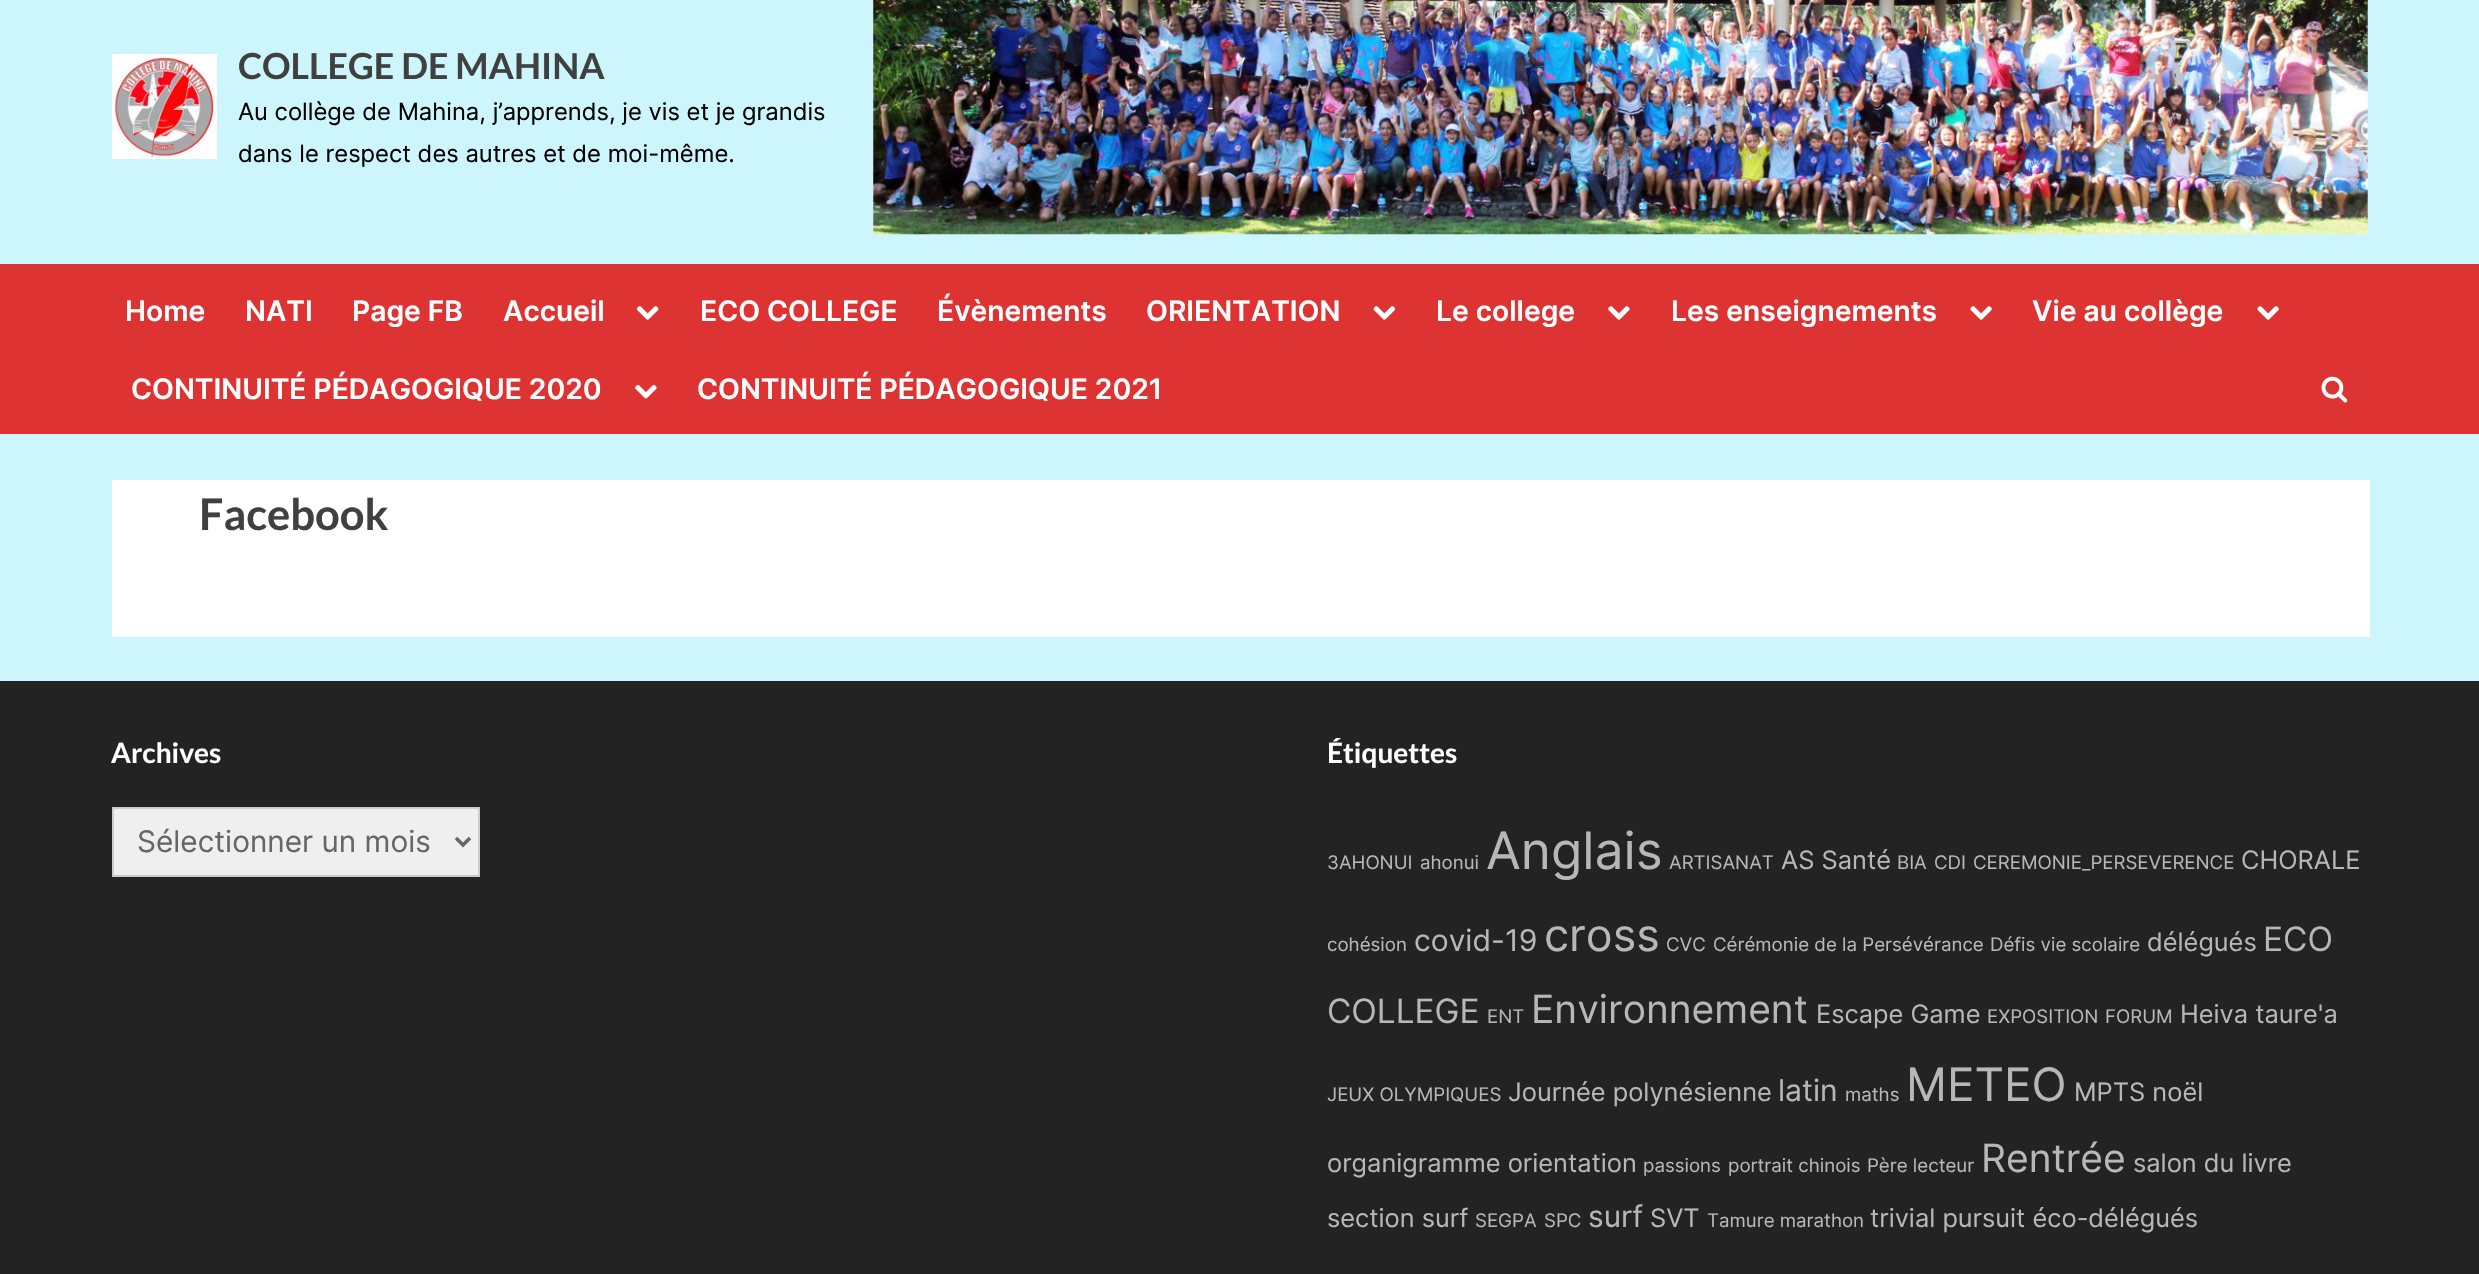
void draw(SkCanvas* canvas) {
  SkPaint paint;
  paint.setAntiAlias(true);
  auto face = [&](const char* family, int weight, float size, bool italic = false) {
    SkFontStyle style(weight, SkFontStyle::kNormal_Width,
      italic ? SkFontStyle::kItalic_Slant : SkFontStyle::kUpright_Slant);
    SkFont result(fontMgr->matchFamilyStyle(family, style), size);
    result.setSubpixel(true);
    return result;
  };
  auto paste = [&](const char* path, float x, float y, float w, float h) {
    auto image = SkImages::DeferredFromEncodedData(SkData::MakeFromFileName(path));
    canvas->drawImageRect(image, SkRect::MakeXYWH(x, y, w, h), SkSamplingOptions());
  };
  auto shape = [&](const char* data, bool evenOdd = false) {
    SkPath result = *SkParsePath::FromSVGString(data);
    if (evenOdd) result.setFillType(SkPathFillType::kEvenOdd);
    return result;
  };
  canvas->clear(0xffccf5fc);
  paste("img/1.png", 112, 54, 105, 105);
  paste("img/2.png", 873, 0, 1495, 235);
  paint.setColor(0xffdd3333);
  canvas->drawRect(SkRect::MakeXYWH(0, 264, 2479, 170), paint);
  paste("img/3.png", 636, 306, 23, 14);
  paste("img/4.png", 1373, 306, 23, 14);
  paste("img/5.png", 1608, 306, 22, 14);
  paste("img/6.png", 1970, 306, 22, 14);
  paste("img/6.png", 2257, 306, 22, 14);
  paste("img/7.png", 635, 384, 22, 15);
  paste("img/8.png", 2321, 376, 27, 27);
  paint.setColor(0xffffffff);
  canvas->drawRect(SkRect::MakeXYWH(112, 480, 2258, 157), paint);
  paint.setColor(0xff232323);
  canvas->drawRect(SkRect::MakeXYWH(0, 681, 2479, 593), paint);
  paint.setColor(0xffefefef);
  canvas->drawRect(SkRect::MakeXYWH(113, 808, 366, 68), paint);
  paint.setStroke(true);
  paint.setStrokeWidth(2);
  paint.setColor(0xffcccccc);
  canvas->drawRect(SkRect::MakeXYWH(113, 808, 366, 68), paint);
  paint.setStrokeWidth(3.5f);
  paint.setColor(0xff666666);
  canvas->drawPath(shape("M456 838L463 845L470 838"), paint);
  auto f0 = face("Lato", 700, 35.75f);
  paint.setStroke(false);
  paint.setColor(0xff404040);
  canvas->drawString("COLLEGE DE MAHINA", 238, 79, f0, paint);
  auto f1 = face("Inter", 400, 23.8f);
  paint.setColor(0xff000000);
  canvas->drawString("Au collège de Mahina, j’apprends, je vis et je grandis", 238, 120, f1, paint);
  canvas->drawString("dans le respect des autres et de moi-même.", 238, 162, f1, paint);
  auto f2 = face("Inter", 600, 28.25f);
  paint.setColor(0xffffffff);
  {
    const struct { const char* s; float x, y; } items[] = {
      {"Home", 125, 321},
      {"NATI", 245, 321},
      {"Page FB", 352, 321},
      {"Accueil", 503, 321},
      {"ECO COLLEGE", 700, 321},
      {"Évènements", 937, 321},
      {"ORIENTATION", 1146, 321},
      {"Le college", 1436, 321},
      {"Les enseignements", 1671, 321},
      {"Vie au collège", 2032, 321},
      {"CONTINUITÉ PÉDAGOGIQUE 2020", 131, 399},
      {"CONTINUITÉ PÉDAGOGIQUE 2021", 697, 399},
    };
    for (auto [s, x, y] : items) {
      canvas->drawString(s, x, y, f2, paint);
    }
  }
  auto f3 = face("Lato", 700, 43.5f);
  paint.setColor(0xff404040);
  canvas->drawString("Facebook", 199, 530, f3, paint);
  auto f4 = face("Lato", 700, 28);
  paint.setColor(0xffffffff);
  canvas->drawString("Archives", 111, 763, f4, paint);
  auto f5 = face("Inter", 400, 29.75f);
  paint.setColor(0xff666666);
  canvas->drawString("Sélectionner un mois", 137, 852, f5, paint);
  paint.setColor(0xffffffff);
  canvas->drawString("Étiquettes", 1327, 763, f4, paint);
  auto f6 = face("Inter", 400, 18.7f);
  paint.setColor(0xffb7b7b7);
  canvas->drawString("3AHONUI", 1327, 869, f6, paint);
  canvas->drawString("ahonui", 1420, 869, f6, paint);
  auto f7 = face("Inter", 400, 51.5f);
  canvas->drawString("Anglais", 1486, 869, f7, paint);
  canvas->drawString("ARTISANAT", 1669, 869, f6, paint);
  auto f8 = face("Inter", 400, 25.4f);
  canvas->drawString("AS Santé", 1781, 869, f8, paint);
  {
    const struct { const char* s; float x, y; } items[] = {
      {"BIA", 1897, 869},
      {"CDI", 1934, 869},
      {"CEREMONIE_PERSEVERENCE", 1973, 869},
    };
    for (auto [s, x, y] : items) {
      canvas->drawString(s, x, y, f6, paint);
    }
  }
  canvas->drawString("CHORALE", 2241, 869, f8, paint);
  canvas->drawString("cohésion", 1327, 951, f6, paint);
  auto f9 = face("Inter", 400, 30);
  canvas->drawString("covid-19", 1414, 951, f9, paint);
  auto f10 = face("Inter", 400, 45);
  canvas->drawString("cross", 1544, 951, f10, paint);
  {
    const struct { const char* s; float x, y; } items[] = {
      {"CVC", 1666, 951},
      {"Cérémonie de la Persévérance", 1713, 951},
      {"Défis vie scolaire", 1990, 951},
    };
    for (auto [s, x, y] : items) {
      canvas->drawString(s, x, y, f6, paint);
    }
  }
  canvas->drawString("délégués", 2147, 951, f8, paint);
  auto f11 = face("Inter", 400, 33.5f);
  canvas->drawString("ECO", 2263, 951, f11, paint);
  canvas->drawString("COLLEGE", 1327, 1023, f11, paint);
  canvas->drawString("ENT", 1487, 1023, f6, paint);
  auto f12 = face("Inter", 400, 39);
  canvas->drawString("Environnement", 1531, 1023, f12, paint);
  canvas->drawString("Escape Game", 1816, 1023, f8, paint);
  canvas->drawString("EXPOSITION", 1987, 1023, f6, paint);
  canvas->drawString("FORUM", 2105, 1023, f6, paint);
  canvas->drawString("Heiva taure'a", 2180, 1023, f8, paint);
  canvas->drawString("JEUX OLYMPIQUES", 1327, 1101, f6, paint);
  canvas->drawString("Journée polynésienne", 1508, 1101, f8, paint);
  canvas->drawString("latin", 1778, 1101, f9, paint);
  canvas->drawString("maths", 1845, 1101, f6, paint);
  auto f13 = face("Inter", 400, 46);
  canvas->drawString("METEO", 1906, 1101, f13, paint);
  canvas->drawString("MPTS noël", 2074, 1101, f8, paint);
  canvas->drawString("organigramme orientation", 1327, 1172, f8, paint);
  {
    const struct { const char* s; float x, y; } items[] = {
      {"passions", 1643, 1172},
      {"portrait chinois", 1728, 1172},
      {"Père lecteur", 1867, 1172},
    };
    for (auto [s, x, y] : items) {
      canvas->drawString(s, x, y, f6, paint);
    }
  }
  canvas->drawString("Rentrée", 1981, 1172, f12, paint);
  canvas->drawString("salon du livre", 2133, 1172, f8, paint);
  canvas->drawString("section surf", 1327, 1227, f8, paint);
  canvas->drawString("SEGPA", 1475, 1227, f6, paint);
  canvas->drawString("SPC", 1544, 1227, f6, paint);
  canvas->drawString("surf", 1588, 1227, f9, paint);
  canvas->drawString("SVT", 1650, 1227, f8, paint);
  canvas->drawString("Tamure marathon", 1707, 1227, f6, paint);
  canvas->drawString("trivial pursuit éco-délégués", 1870, 1227, f8, paint);
}
